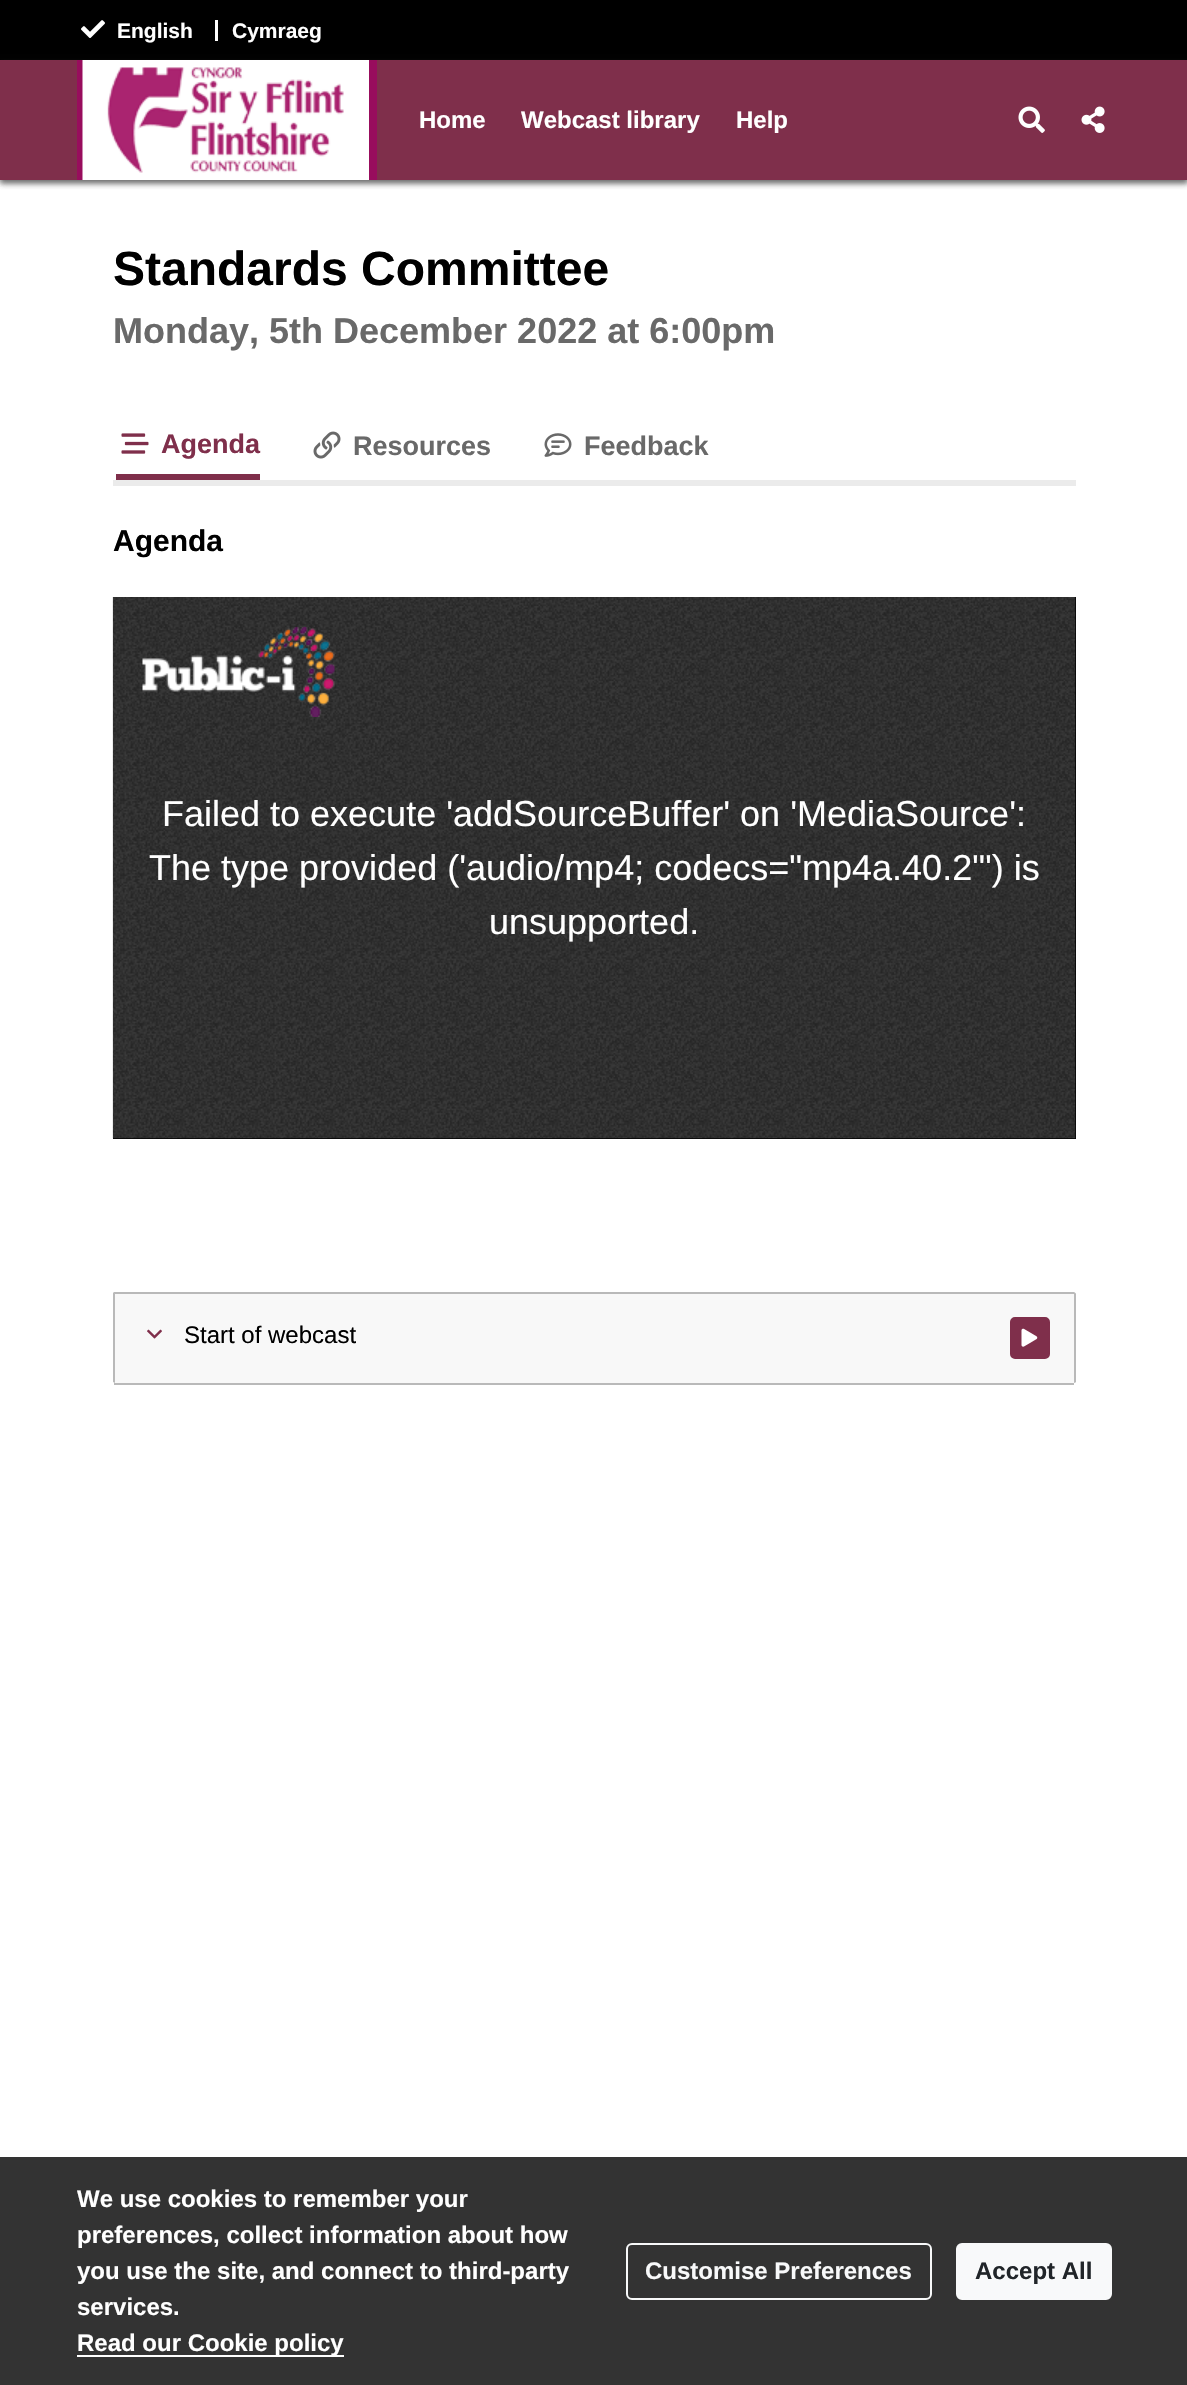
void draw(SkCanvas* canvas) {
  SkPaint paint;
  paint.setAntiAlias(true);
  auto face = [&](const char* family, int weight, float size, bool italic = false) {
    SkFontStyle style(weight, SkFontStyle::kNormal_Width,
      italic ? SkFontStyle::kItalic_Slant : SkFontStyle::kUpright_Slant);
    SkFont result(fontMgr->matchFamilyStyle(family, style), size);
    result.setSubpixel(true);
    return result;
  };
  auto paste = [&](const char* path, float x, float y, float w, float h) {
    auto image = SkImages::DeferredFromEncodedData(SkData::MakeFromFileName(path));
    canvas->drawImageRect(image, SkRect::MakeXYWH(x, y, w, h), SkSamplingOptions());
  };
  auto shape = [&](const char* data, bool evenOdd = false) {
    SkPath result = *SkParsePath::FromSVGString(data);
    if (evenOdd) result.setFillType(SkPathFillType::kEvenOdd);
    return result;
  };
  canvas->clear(0xffffffff);
  paint.setColor(0x80333333);
  paint.setMaskFilter(SkMaskFilter::MakeBlur(kNormal_SkBlurStyle, 3));
  canvas->drawRect(SkRect::MakeXYWH(0, 3, 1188, 180), paint);
  paint.setMaskFilter(nullptr);
  paint.setColor(0xff000000);
  canvas->drawRect(SkRect::MakeXYWH(0, 0, 1187, 60), paint);
  paste("img/1.png", 81, 20, 24, 18);
  paint.setColor(0xffffffff);
  canvas->drawRect(SkRect::MakeXYWH(215, 20, 3, 21), paint);
  paint.setColor(0x80333333);
  paint.setMaskFilter(SkMaskFilter::MakeBlur(kNormal_SkBlurStyle, 3));
  canvas->drawRect(SkRect::MakeXYWH(0, 63, 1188, 120), paint);
  paint.setMaskFilter(nullptr);
  paint.setColor(0xff7f2f4b);
  canvas->drawRect(SkRect::MakeXYWH(0, 60, 1187, 120), paint);
  paint.setColor(0xff980d5d);
  canvas->drawRect(SkRect::MakeXYWH(77, 60, 6, 120), paint);
  paste("img/2.png", 82, 60, 287, 120);
  canvas->drawRect(SkRect::MakeXYWH(369, 60, 8, 120), paint);
  paste("img/3.png", 1018, 106, 27, 27);
  paste("img/4.png", 1081, 106, 24, 27);
  paint.setColor(0xffebebeb);
  canvas->drawRect(SkRect::MakeXYWH(113, 480, 963, 6), paint);
  paint.setColor(0xff7f2f4b);
  canvas->drawRect(SkRect::MakeXYWH(116, 474, 144, 6), paint);
  paste("img/5.png", 121, 433, 28, 21);
  paste("img/6.png", 313, 431, 28, 28);
  paste("img/7.png", 544, 433, 28, 24);
  paint.setColor(0xff000000);
  canvas->drawRect(SkRect::MakeXYWH(113, 597, 963, 542), paint);
  paste("img/9.png", 112, 597, 964, 542);
  paste("img/8.png", 142, 627, 193, 90);
  paint.setColor(0xffb9b9b9);
  canvas->drawRect(SkRect::MakeXYWH(114, 1383, 960, 2), paint);
  paint.setColor(0xfff8f8f8);
  canvas->drawPath(shape("M113 1293L114 1292H1074C1075 1293 1076 1293 1076 1294V1382C1076 1382 1074 1383 1072 1383H116L113 1382Z"), paint);
  paint.setColor(0xffb9b9b9);
  canvas->drawPath(shape("M115 1294V1383L113 1382V1293L114 1292H1074C1075 1293 1076 1293 1076 1294V1382C1076 1382 1075 1383 1074 1383V1294Z"), paint);
  paste("img/10.png", 147, 1329, 15, 10);
  paint.setColor(0xff7f2f4b);
  canvas->drawRoundRect(SkRect::MakeXYWH(1011, 1318, 38, 40), 4, 4, paint);
  paint.setStroke(true);
  paint.setStrokeWidth(2);
  canvas->drawRoundRect(SkRect::MakeXYWH(1011, 1318, 38, 40), 4, 4, paint);
  paste("img/11.png", 1021, 1328, 17, 19);
  paint.setStroke(false);
  paint.setColor(0xff333333);
  canvas->drawRect(SkRect::MakeXYWH(0, 2157, 1187, 228), paint);
  paint.setColor(0xffffffff);
  canvas->drawRect(SkRect::MakeXYWH(77, 2355, 267, 2), paint);
  paint.setStroke(true);
  paint.setColor(0xfff8f9fa);
  canvas->drawRoundRect(SkRect::MakeXYWH(627, 2244, 304, 55), 5, 5, paint);
  paint.setStroke(false);
  canvas->drawRoundRect(SkRect::MakeXYWH(957, 2244, 154, 55), 5, 5, paint);
  paint.setStroke(true);
  canvas->drawRoundRect(SkRect::MakeXYWH(957, 2244, 154, 55), 5, 5, paint);
  auto f0 = face("Liberation Sans", 700, 21);
  paint.setStroke(false);
  paint.setColor(0xffffffff);
  canvas->drawString("English", 117, 38, f0, paint);
  canvas->drawString("Cymraeg", 232, 38, f0, paint);
  auto f1 = face("Liberation Sans", 700, 24);
  {
    const struct { const char* s; float x, y; } items[] = {
      {"Home", 419, 128},
      {"Webcast library", 521, 128},
      {"Help", 736, 128},
    };
    for (auto [s, x, y] : items) {
      canvas->drawString(s, x, y, f1, paint);
    }
  }
  auto f2 = face("Liberation Sans", 700, 48);
  paint.setColor(0xff000000);
  canvas->drawString("Standards Committee", 113, 285, f2, paint);
  auto f3 = face("Liberation Sans", 700, 36);
  paint.setColor(0xff696969);
  canvas->drawString("Monday, 5th December 2022 at 6:00pm", 113, 343, f3, paint);
  auto f4 = face("Liberation Sans", 700, 27);
  paint.setColor(0xff7f2f4b);
  canvas->drawString("Agenda", 161, 453, f4, paint);
  paint.setColor(0xff696969);
  canvas->drawString("Resources", 353, 455, f4, paint);
  canvas->drawString("Feedback", 584, 455, f4, paint);
  auto f5 = face("Liberation Sans", 700, 30);
  paint.setColor(0xff000000);
  canvas->drawString("Agenda", 113, 551, f5, paint);
  auto f6 = face("Liberation Sans", 400, 36);
  paint.setColor(0xffffffff);
  {
    const struct { const char* s; float x, y; } items[] = {
      {"Failed to execute 'addSourceBuffer' on 'MediaSource':", 162, 826},
      {"The type provided ('audio/mp4; codecs=\"mp4a.40.2\"') is", 149, 880},
      {"unsupported.", 489, 934},
    };
    for (auto [s, x, y] : items) {
      canvas->drawString(s, x, y, f6, paint);
    }
  }
  auto f7 = face("Liberation Sans", 400, 24);
  paint.setColor(0xff000000);
  canvas->drawString("Start of webcast", 184, 1343, f7, paint);
  paint.setColor(0xffffffff);
  {
    const struct { const char* s; float x, y; } items[] = {
      {"We use cookies to remember your", 77, 2207},
      {"preferences, collect information about how", 77, 2243},
      {"you use the site, and connect to third-party", 77, 2279},
      {"services.", 77, 2315},
      {"Read our Cookie policy", 77, 2351},
    };
    for (auto [s, x, y] : items) {
      canvas->drawString(s, x, y, f1, paint);
    }
  }
  paint.setColor(0xfff8f9fa);
  canvas->drawString("Customise Preferences", 645, 2279, f1, paint);
  paint.setColor(0xff212529);
  canvas->drawString("Accept All", 975, 2279, f1, paint);
}
